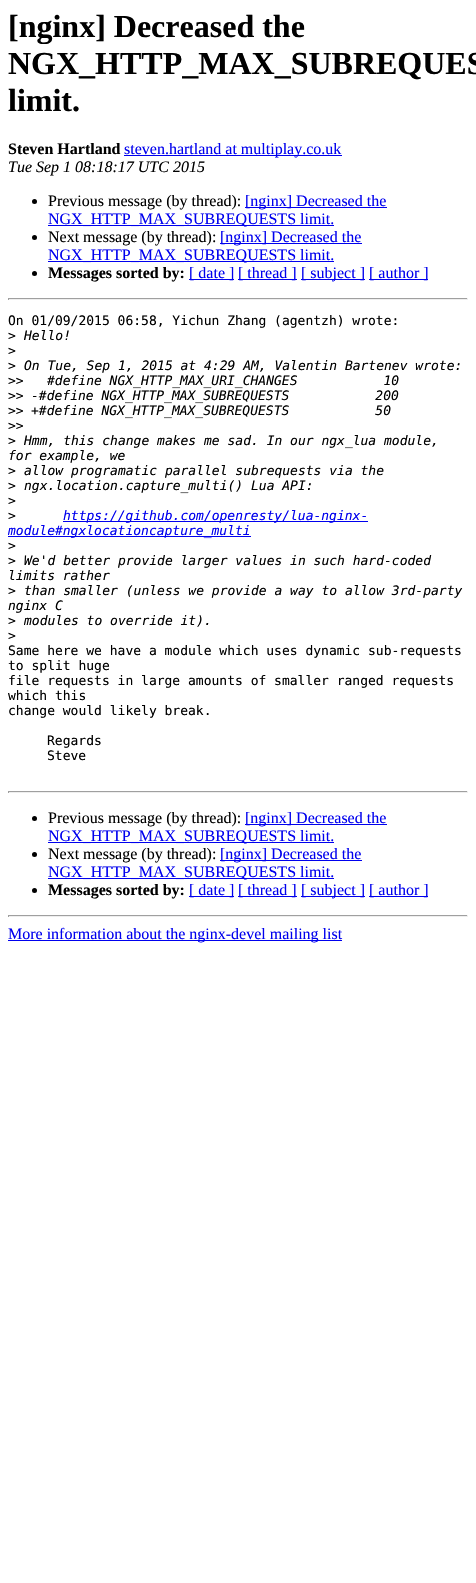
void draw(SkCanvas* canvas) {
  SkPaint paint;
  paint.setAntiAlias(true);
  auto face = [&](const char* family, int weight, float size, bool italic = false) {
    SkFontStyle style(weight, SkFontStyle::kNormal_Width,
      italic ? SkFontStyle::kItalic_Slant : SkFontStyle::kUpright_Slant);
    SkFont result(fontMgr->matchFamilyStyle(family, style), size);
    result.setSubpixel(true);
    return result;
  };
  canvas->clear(0xffffffff);
  paint.setColor(0xff0000ee);
  canvas->drawRect(SkRect::MakeXYWH(124, 155, 218, 1), paint);
  paint.setColor(0xff000000);
  canvas->drawCircle(34.5f, 201.5f, 2.5f, paint);
  paint.setColor(0xff0000ee);
  canvas->drawRect(SkRect::MakeXYWH(245, 207, 142, 1), paint);
  canvas->drawRect(SkRect::MakeXYWH(48, 225, 286, 1), paint);
  paint.setColor(0xff000000);
  canvas->drawCircle(34.5f, 237.5f, 2.5f, paint);
  paint.setColor(0xff0000ee);
  canvas->drawRect(SkRect::MakeXYWH(220, 243, 142, 1), paint);
  canvas->drawRect(SkRect::MakeXYWH(48, 261, 286, 1), paint);
  paint.setColor(0xff000000);
  canvas->drawCircle(34.5f, 273.5f, 2.5f, paint);
  {
    const struct { float x, y, w, h; SkColor color; } items[] = {
      {189, 279, 45, 1, 0xff0000ee},
      {238, 279, 59, 1, 0xff0000ee},
      {301, 279, 64, 1, 0xff0000ee},
      {369, 279, 59, 1, 0xff0000ee},
      {8, 298, 460, 1, 0xff9f9f9f},
      {467, 298, 1, 2, 0xffeeeeee},
      {8, 299, 460, 1, 0xffeeeeee},
      {8, 298, 1, 2, 0xff9f9f9f},
      {63, 521, 305, 1, 0xff0000ee},
      {8, 536, 243, 1, 0xff0000ee},
      {8, 791, 460, 1, 0xff9f9f9f},
      {467, 791, 1, 2, 0xffeeeeee},
      {8, 792, 460, 1, 0xffeeeeee},
      {8, 791, 1, 2, 0xff9f9f9f},
    };
    for (auto [x, y, w, h, color] : items) {
      paint.setColor(color);
      canvas->drawRect(SkRect::MakeXYWH(x, y, w, h), paint);
    }
  }
  paint.setColor(0xff000000);
  canvas->drawCircle(34.5f, 818.5f, 2.5f, paint);
  paint.setColor(0xff0000ee);
  canvas->drawRect(SkRect::MakeXYWH(245, 824, 142, 1), paint);
  canvas->drawRect(SkRect::MakeXYWH(48, 842, 286, 1), paint);
  paint.setColor(0xff000000);
  canvas->drawCircle(34.5f, 854.5f, 2.5f, paint);
  paint.setColor(0xff0000ee);
  canvas->drawRect(SkRect::MakeXYWH(220, 860, 142, 1), paint);
  canvas->drawRect(SkRect::MakeXYWH(48, 878, 286, 1), paint);
  paint.setColor(0xff000000);
  canvas->drawCircle(34.5f, 890.5f, 2.5f, paint);
  {
    const struct { float x, y, w, h; SkColor color; } items[] = {
      {189, 896, 45, 1, 0xff0000ee},
      {238, 896, 59, 1, 0xff0000ee},
      {301, 896, 64, 1, 0xff0000ee},
      {369, 896, 59, 1, 0xff0000ee},
      {8, 915, 460, 1, 0xff9f9f9f},
      {467, 915, 1, 2, 0xffeeeeee},
      {8, 916, 460, 1, 0xffeeeeee},
      {8, 915, 1, 2, 0xff9f9f9f},
      {8, 940, 334, 1, 0xff0000ee},
    };
    for (auto [x, y, w, h, color] : items) {
      paint.setColor(color);
      canvas->drawRect(SkRect::MakeXYWH(x, y, w, h), paint);
    }
  }
  auto f0 = face("Liberation Serif", 700, 32);
  paint.setColor(0xff000000);
  {
    const struct { const char* s; float x, y; } items[] = {
      {"[nginx] Decreased the", 8, 37},
      {"NGX_HTTP_MAX_SUBREQUES", 8, 74},
      {"limit.", 8, 111},
    };
    for (auto [s, x, y] : items) {
      canvas->drawString(s, x, y, f0, paint);
    }
  }
  auto f1 = face("Liberation Serif", 700, 16);
  canvas->drawString("Steven Hartland", 8, 154, f1, paint);
  auto f2 = face("Liberation Serif", 400, 16);
  paint.setColor(0xff0000ee);
  canvas->drawString("steven.hartland at multiplay.co.uk", 124, 154, f2, paint);
  auto f3 = face("Liberation Serif", 400, 16, true);
  paint.setColor(0xff000000);
  canvas->drawString("Tue Sep 1 08:18:17 UTC 2015", 8, 172, f3, paint);
  canvas->drawString("Previous message (by thread):", 48, 206, f2, paint);
  paint.setColor(0xff0000ee);
  canvas->drawString("[nginx] Decreased the", 245, 206, f2, paint);
  canvas->drawString("NGX_HTTP_MAX_SUBREQUESTS limit.", 48, 224, f2, paint);
  paint.setColor(0xff000000);
  canvas->drawString("Next message (by thread):", 48, 242, f2, paint);
  paint.setColor(0xff0000ee);
  canvas->drawString("[nginx] Decreased the", 220, 242, f2, paint);
  canvas->drawString("NGX_HTTP_MAX_SUBREQUESTS limit.", 48, 260, f2, paint);
  paint.setColor(0xff000000);
  canvas->drawString("Messages sorted by:", 48, 278, f1, paint);
  paint.setColor(0xff0000ee);
  {
    const struct { const char* s; float x, y; } items[] = {
      {"[ date ]", 189, 278},
      {"[ thread ]", 238, 278},
      {"[ subject ]", 301, 278},
      {"[ author ]", 369, 278},
    };
    for (auto [s, x, y] : items) {
      canvas->drawString(s, x, y, f2, paint);
    }
  }
  auto f4 = face("DejaVu Sans Mono", 400, 13);
  paint.setColor(0xff000000);
  canvas->drawString("On 01/09/2015 06:58, Yichun Zhang (agentzh) wrote:", 8, 325, f4, paint);
  canvas->drawString(">", 8, 340, f4, paint);
  auto f5 = face("DejaVu Sans Mono", 400, 13, true);
  canvas->drawString("Hello!", 24, 340, f5, paint);
  canvas->drawString(">", 8, 355, f4, paint);
  canvas->drawString(">", 8, 370, f4, paint);
  canvas->drawString("On Tue, Sep 1, 2015 at 4:29 AM, Valentin Bartenev wrote:", 24, 370, f5, paint);
  canvas->drawString(">>", 8, 385, f4, paint);
  canvas->drawString("#define NGX_HTTP_MAX_URI_CHANGES           10", 47, 385, f5, paint);
  canvas->drawString(">>", 8, 400, f4, paint);
  canvas->drawString("-#define NGX_HTTP_MAX_SUBREQUESTS           200", 31, 400, f5, paint);
  canvas->drawString(">>", 8, 415, f4, paint);
  canvas->drawString("+#define NGX_HTTP_MAX_SUBREQUESTS           50", 31, 415, f5, paint);
  canvas->drawString(">>", 8, 430, f4, paint);
  canvas->drawString(">", 8, 445, f4, paint);
  canvas->drawString("Hmm, this change makes me sad. In our ngx_lua module,", 24, 445, f5, paint);
  canvas->drawString("for example, we", 8, 460, f5, paint);
  canvas->drawString(">", 8, 475, f4, paint);
  canvas->drawString("allow programatic parallel subrequests via the", 24, 475, f5, paint);
  canvas->drawString(">", 8, 490, f4, paint);
  canvas->drawString("ngx.location.capture_multi() Lua API:", 24, 490, f5, paint);
  canvas->drawString(">", 8, 505, f4, paint);
  canvas->drawString(">", 8, 520, f4, paint);
  paint.setColor(0xff0000ee);
  canvas->drawString("https://github.com/openresty/lua-nginx-", 63, 520, f5, paint);
  canvas->drawString("module#ngxlocationcapture_multi", 8, 535, f5, paint);
  paint.setColor(0xff000000);
  canvas->drawString(">", 8, 550, f4, paint);
  canvas->drawString(">", 8, 565, f4, paint);
  canvas->drawString("We'd better provide larger values in such hard-coded", 24, 565, f5, paint);
  canvas->drawString("limits rather", 8, 580, f5, paint);
  canvas->drawString(">", 8, 595, f4, paint);
  canvas->drawString("than smaller (unless we provide a way to allow 3rd-party", 24, 595, f5, paint);
  canvas->drawString("nginx C", 8, 610, f5, paint);
  canvas->drawString(">", 8, 625, f4, paint);
  canvas->drawString("modules to override it).", 24, 625, f5, paint);
  {
    const struct { const char* s; float x, y; } items[] = {
      {">", 8, 640},
      {"Same here we have a module which uses dynamic sub-requests", 8, 655},
      {"to split huge", 8, 670},
      {"file requests in large amounts of smaller ranged requests", 8, 685},
      {"which this", 8, 700},
      {"change would likely break.", 8, 715},
      {"Regards", 47, 745},
      {"Steve", 47, 760},
    };
    for (auto [s, x, y] : items) {
      canvas->drawString(s, x, y, f4, paint);
    }
  }
  canvas->drawString("Previous message (by thread):", 48, 823, f2, paint);
  paint.setColor(0xff0000ee);
  canvas->drawString("[nginx] Decreased the", 245, 823, f2, paint);
  canvas->drawString("NGX_HTTP_MAX_SUBREQUESTS limit.", 48, 841, f2, paint);
  paint.setColor(0xff000000);
  canvas->drawString("Next message (by thread):", 48, 859, f2, paint);
  paint.setColor(0xff0000ee);
  canvas->drawString("[nginx] Decreased the", 220, 859, f2, paint);
  canvas->drawString("NGX_HTTP_MAX_SUBREQUESTS limit.", 48, 877, f2, paint);
  paint.setColor(0xff000000);
  canvas->drawString("Messages sorted by:", 48, 895, f1, paint);
  paint.setColor(0xff0000ee);
  {
    const struct { const char* s; float x, y; } items[] = {
      {"[ date ]", 189, 895},
      {"[ thread ]", 238, 895},
      {"[ subject ]", 301, 895},
      {"[ author ]", 369, 895},
      {"More information about the nginx-devel mailing list", 8, 939},
    };
    for (auto [s, x, y] : items) {
      canvas->drawString(s, x, y, f2, paint);
    }
  }
}
